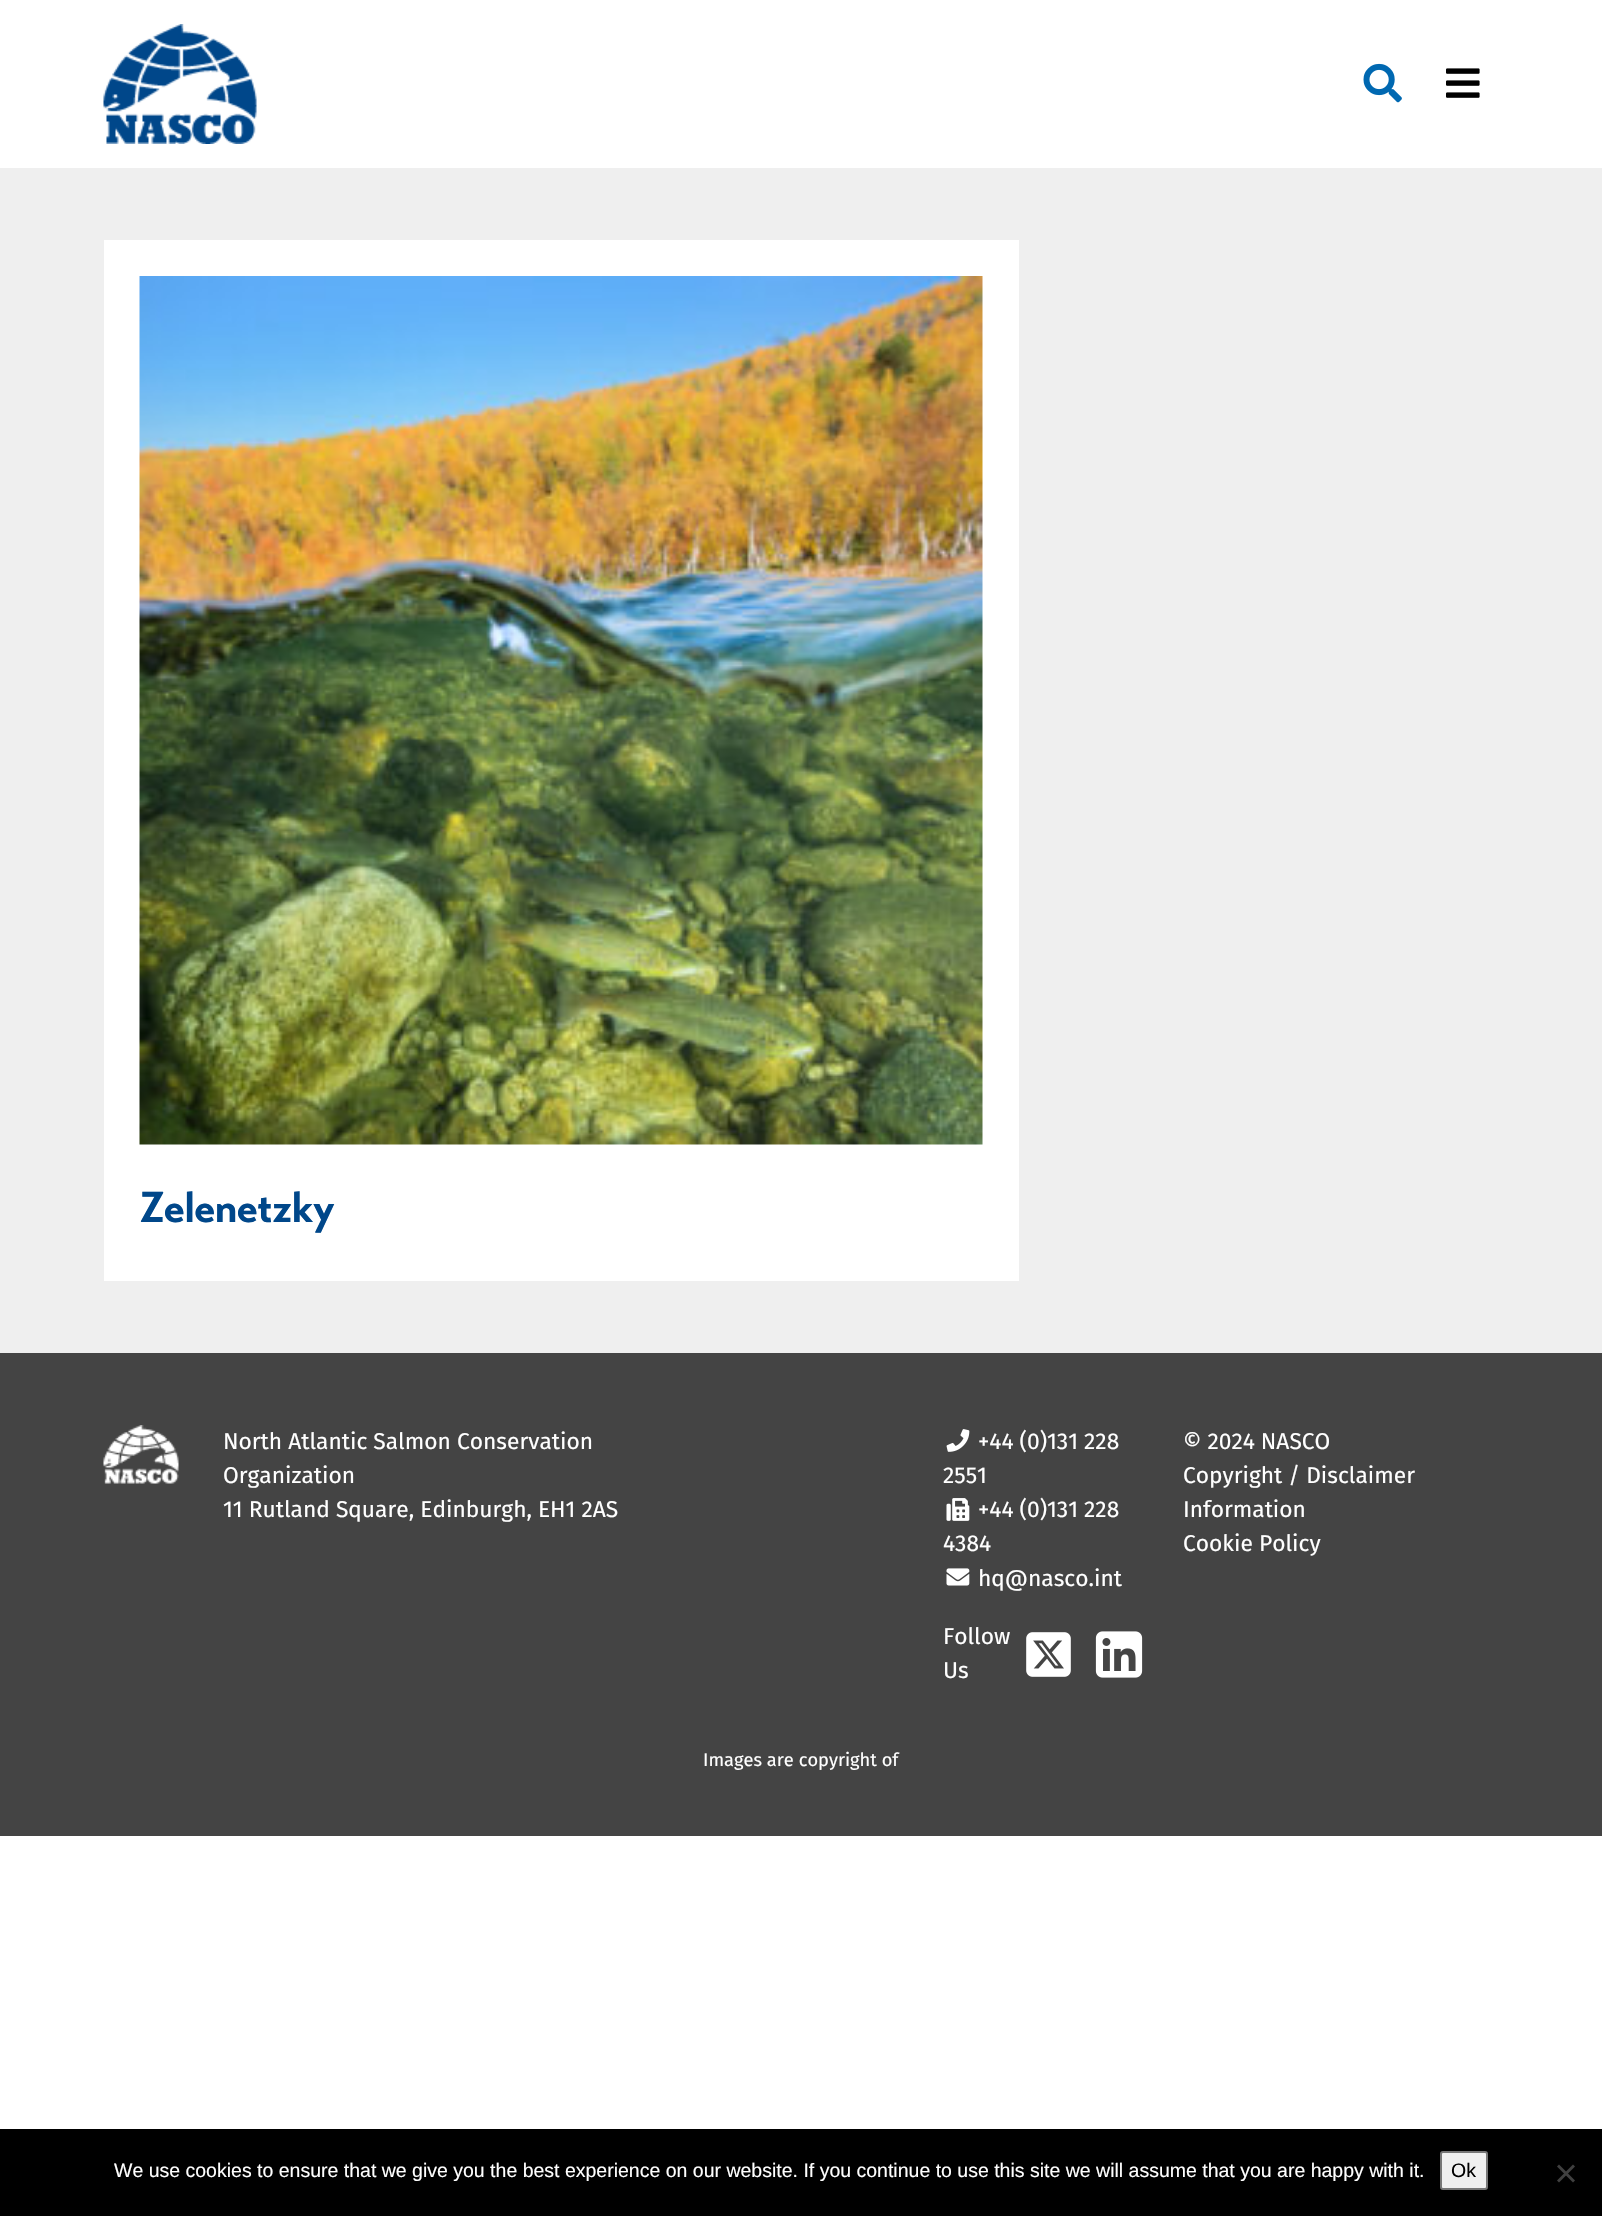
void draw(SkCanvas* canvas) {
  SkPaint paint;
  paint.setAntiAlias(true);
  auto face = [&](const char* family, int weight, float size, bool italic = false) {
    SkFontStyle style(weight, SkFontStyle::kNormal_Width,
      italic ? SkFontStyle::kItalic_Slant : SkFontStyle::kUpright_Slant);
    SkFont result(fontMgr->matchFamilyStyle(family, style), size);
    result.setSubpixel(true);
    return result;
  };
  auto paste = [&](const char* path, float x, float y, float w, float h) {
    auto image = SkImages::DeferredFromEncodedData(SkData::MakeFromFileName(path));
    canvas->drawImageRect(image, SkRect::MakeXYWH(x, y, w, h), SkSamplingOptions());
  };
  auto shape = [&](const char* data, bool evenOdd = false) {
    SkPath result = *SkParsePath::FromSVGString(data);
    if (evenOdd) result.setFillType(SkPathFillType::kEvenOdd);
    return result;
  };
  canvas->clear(0xffffffff);
  paste("img/1.png", 103, 24, 154, 120);
  paste("img/2.png", 1363, 63, 39, 40);
  paste("img/3.png", 1446, 68, 34, 30);
  paint.setColor(0xffefefef);
  canvas->drawRect(SkRect::MakeXYWH(0, 168, 1602, 1185), paint);
  paint.setColor(0xffffffff);
  canvas->drawRect(SkRect::MakeXYWH(104, 240, 915, 1041), paint);
  paste("img/4.png", 139, 276, 844, 869);
  paint.setColor(0xff444444);
  canvas->drawRect(SkRect::MakeXYWH(0, 1353, 1602, 483), paint);
  paste("img/5.png", 103, 1425, 76, 59);
  paste("img/6.png", 946, 1429, 24, 23);
  paste("img/7.png", 946, 1498, 24, 23);
  paste("img/8.png", 946, 1568, 24, 18);
  paste("img/9.png", 1026, 1632, 45, 45);
  paste("img/10.png", 1095, 1631, 48, 47);
  paint.setColor(0xff000000);
  canvas->drawRect(SkRect::MakeXYWH(0, 2129, 1602, 87), paint);
  paint.setColor(0xffefefef);
  canvas->drawRoundRect(SkRect::MakeXYWH(1441, 2152, 46, 37), 2, 2, paint);
  paint.setStroke(true);
  paint.setStrokeWidth(2);
  paint.setColor(0xff767676);
  canvas->drawRoundRect(SkRect::MakeXYWH(1441, 2152, 46, 37), 2, 2, paint);
  paint.setStroke(false);
  paint.setColor(0xff404040);
  canvas->drawPath(shape("M1573 2164.5L1575 2166.5L1559 2182.5L1557 2180.5Z"), paint);
  canvas->drawPath(shape("M1557 2166.5L1559 2164.5L1575 2180.5L1573 2182.5Z"), paint);
  auto f0 = face("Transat", 700, 43);
  paint.setColor(0xff00478a);
  canvas->drawString("Zelenetzky", 140, 1222, f0, paint);
  auto f1 = face("Fira Sans", 400, 22.75f);
  paint.setColor(0xffffffff);
  {
    const struct { const char* s; float x, y; } items[] = {
      {"North Atlantic Salmon Conservation", 223, 1449},
      {"Organization", 223, 1483},
      {"11 Rutland Square, Edinburgh, EH1 2AS", 223, 1517},
      {"+44 (0)131 228", 978, 1449},
      {"2551", 943, 1483},
      {"+44 (0)131 228", 978, 1517},
      {"4384", 943, 1551},
      {"hq@nasco.int", 978, 1586},
      {"Follow", 943, 1644},
      {"Us", 943, 1678},
      {"© 2024 NASCO", 1183, 1449},
      {"Copyright / Disclaimer", 1183, 1483},
      {"Information", 1183, 1517},
      {"Cookie Policy", 1183, 1551},
    };
    for (auto [s, x, y] : items) {
      canvas->drawString(s, x, y, f1, paint);
    }
  }
  auto f2 = face("Fira Sans", 400, 18.25f);
  canvas->drawString("Images are copyright of", 703, 1766, f2, paint);
  auto f3 = face("Liberation Sans", 400, 19.5f);
  canvas->drawString("We use cookies to ensure that we give you the best experience on our website. If you continue to use this site we will assume that you are happy with it.", 114, 2177, f3, paint);
  paint.setColor(0xff000000);
  canvas->drawString("Ok", 1451, 2177, f3, paint);
}
